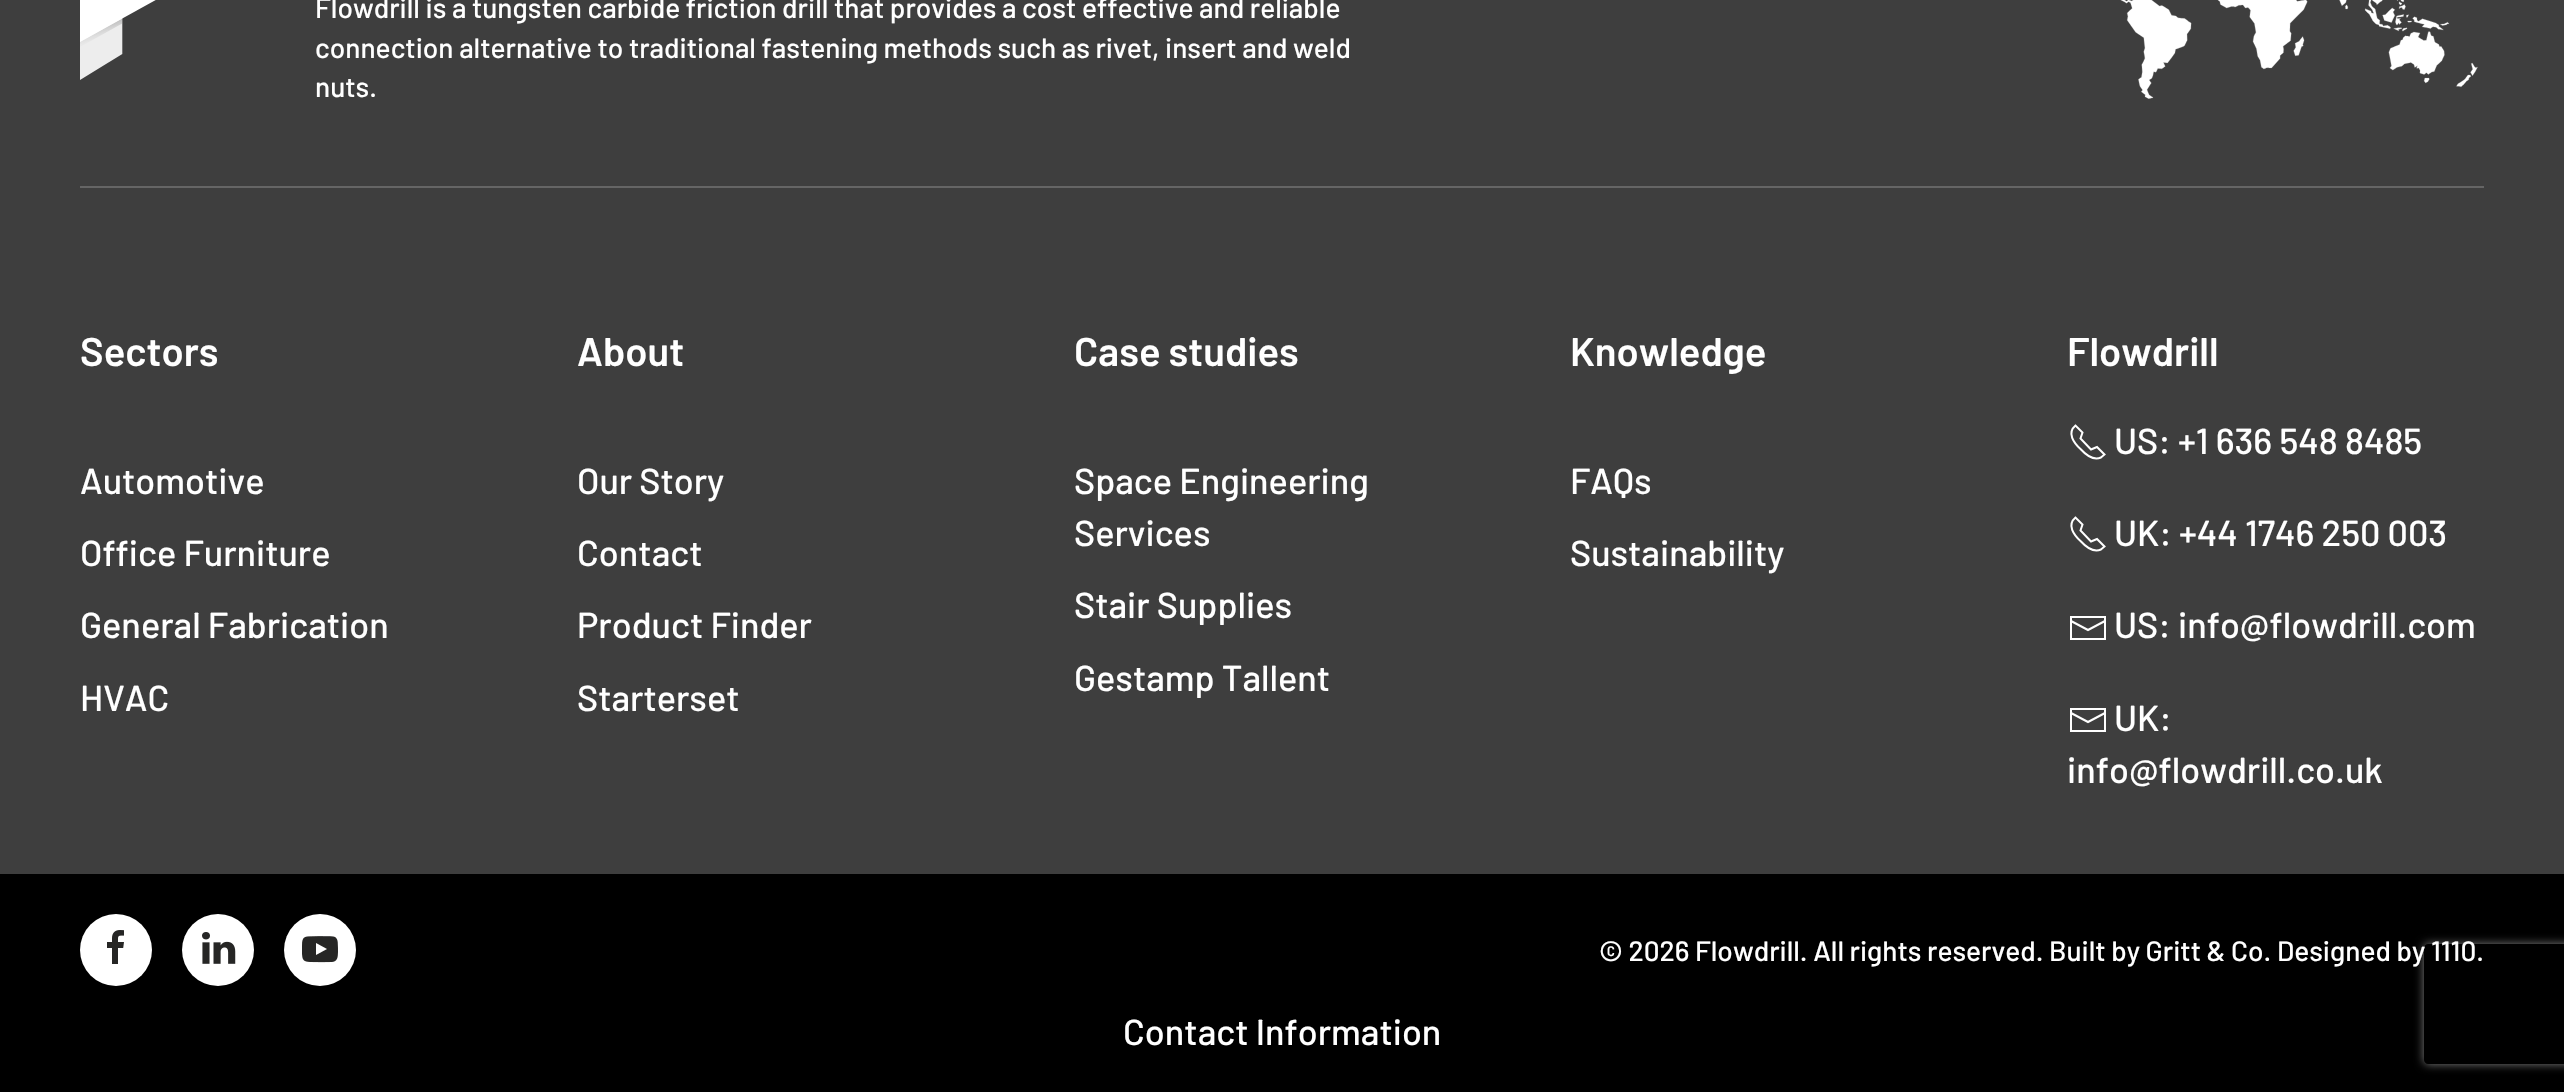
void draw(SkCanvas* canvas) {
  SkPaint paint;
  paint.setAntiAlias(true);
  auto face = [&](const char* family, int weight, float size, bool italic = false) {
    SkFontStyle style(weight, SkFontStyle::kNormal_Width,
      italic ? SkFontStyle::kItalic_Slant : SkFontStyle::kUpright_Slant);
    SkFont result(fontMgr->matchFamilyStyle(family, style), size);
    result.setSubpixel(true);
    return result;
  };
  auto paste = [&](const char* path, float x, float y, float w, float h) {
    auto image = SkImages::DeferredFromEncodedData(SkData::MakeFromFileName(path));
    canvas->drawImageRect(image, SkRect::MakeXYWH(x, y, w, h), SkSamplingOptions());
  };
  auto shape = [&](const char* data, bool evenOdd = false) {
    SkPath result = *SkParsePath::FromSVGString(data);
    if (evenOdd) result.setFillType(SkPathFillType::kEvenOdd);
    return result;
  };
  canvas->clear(0xff3e3e3e);
  paste("img/1.png", 80, 0, 76, 80);
  paste("img/2.png", 2120, 0, 358, 99);
  paint.setColor(0xff656565);
  canvas->drawRect(SkRect::MakeXYWH(80, 186, 2404, 2), paint);
  paint.setStroke(true);
  paint.setStrokeWidth(2);
  paint.setColor(0xffffffff);
  canvas->drawPath(shape("M2080.5 449C2085.5 454.5 2093 461 2101 457.5L2104.5 454.5L2097 447L2091 449.5L2080.5 438.5L2082.5 432.5L2075.5 425.5C2066.5 433 2074 443 2080.5 449"), paint);
  canvas->drawPath(shape("M2080.5 541C2085.5 546.5 2093 553 2101 549.5L2104.5 546.5L2097 539L2091 541.5L2080.5 530.5L2082.5 524.5L2075.5 517.5C2066.5 525 2074 535 2080.5 541"), paint);
  canvas->drawPath(shape("M2071 621L2088 630L2105 621"), paint);
  paint.setStroke(false);
  canvas->drawPath(shape("M2070 616V640H2106V616ZM2104 638H2072V618H2104Z"), paint);
  paint.setStroke(true);
  canvas->drawPath(shape("M2071 713L2088 722L2105 713"), paint);
  paint.setStroke(false);
  canvas->drawPath(shape("M2070 708V732H2106V708ZM2104 730H2072V710H2104Z"), paint);
  paint.setColor(0xff000000);
  canvas->drawRect(SkRect::MakeXYWH(0, 874, 2564, 218), paint);
  canvas->save();
  canvas->clipPath(shape("M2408 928H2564V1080H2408ZM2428 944H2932C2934 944 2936 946 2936 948V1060C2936 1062 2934 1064 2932 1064H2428C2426 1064 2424 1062 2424 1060V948C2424 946 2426 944 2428 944Z", true), true);
  paint.setColor(0xff808080);
  paint.setMaskFilter(SkMaskFilter::MakeBlur(kNormal_SkBlurStyle, 5));
  canvas->drawRoundRect(SkRect::MakeXYWH(2424, 944, 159, 120), 4, 4, paint);
  paint.setMaskFilter(nullptr);
  canvas->restore();
  paint.setColor(0xffffffff);
  canvas->drawCircle(116, 950, 36, paint);
  paste("img/3.png", 107, 930, 17, 34);
  canvas->drawCircle(218, 950, 36, paint);
  paste("img/4.png", 202, 932, 34, 32);
  canvas->drawCircle(320, 950, 36, paint);
  paste("img/5.png", 302, 936, 36, 27);
  auto f0 = face("Barlow", 500, 28);
  {
    const struct { const char* s; float x, y; } items[] = {
      {"Flowdrill is a tungsten carbide friction drill that provides a cost effective and reliable", 315, 18},
      {"connection alternative to traditional fastening methods such as rivet, insert and weld", 315, 58},
      {"nuts.", 315, 97},
    };
    for (auto [s, x, y] : items) {
      canvas->drawString(s, x, y, f0, paint);
    }
  }
  auto f1 = face("Barlow", 600, 40);
  canvas->drawString("Sectors", 80, 366, f1, paint);
  auto f2 = face("Barlow", 500, 36);
  {
    const struct { const char* s; float x, y; } items[] = {
      {"Automotive", 80, 494},
      {"Office Furniture", 80, 566},
      {"General Fabrication", 80, 638},
      {"HVAC", 80, 711},
    };
    for (auto [s, x, y] : items) {
      canvas->drawString(s, x, y, f2, paint);
    }
  }
  canvas->drawString("About", 577, 366, f1, paint);
  {
    const struct { const char* s; float x, y; } items[] = {
      {"Our Story", 577, 494},
      {"Contact", 577, 566},
      {"Product Finder", 577, 638},
      {"Starterset", 577, 711},
    };
    for (auto [s, x, y] : items) {
      canvas->drawString(s, x, y, f2, paint);
    }
  }
  canvas->drawString("Case studies", 1074, 366, f1, paint);
  {
    const struct { const char* s; float x, y; } items[] = {
      {"Space Engineering", 1074, 494},
      {"Services", 1074, 546},
      {"Stair Supplies", 1074, 618},
      {"Gestamp Tallent", 1074, 691},
    };
    for (auto [s, x, y] : items) {
      canvas->drawString(s, x, y, f2, paint);
    }
  }
  canvas->drawString("Knowledge", 1570, 366, f1, paint);
  canvas->drawString("FAQs", 1570, 494, f2, paint);
  canvas->drawString("Sustainability", 1570, 566, f2, paint);
  canvas->drawString("Flowdrill", 2067, 366, f1, paint);
  {
    const struct { const char* s; float x, y; } items[] = {
      {"US: +1 636 548 8485", 2114, 454},
      {"UK: +44 1746 250 003", 2114, 546},
      {"US: info@flowdrill.com", 2114, 638},
      {"UK:", 2114, 731},
      {"info@flowdrill.co.uk", 2067, 783},
    };
    for (auto [s, x, y] : items) {
      canvas->drawString(s, x, y, f2, paint);
    }
  }
  canvas->drawString("© 2026 Flowdrill. All rights reserved. Built by Gritt & Co. Designed by 1110.", 1599, 961, f0, paint);
  canvas->drawString("Contact Information", 1123, 1045, f2, paint);
}
